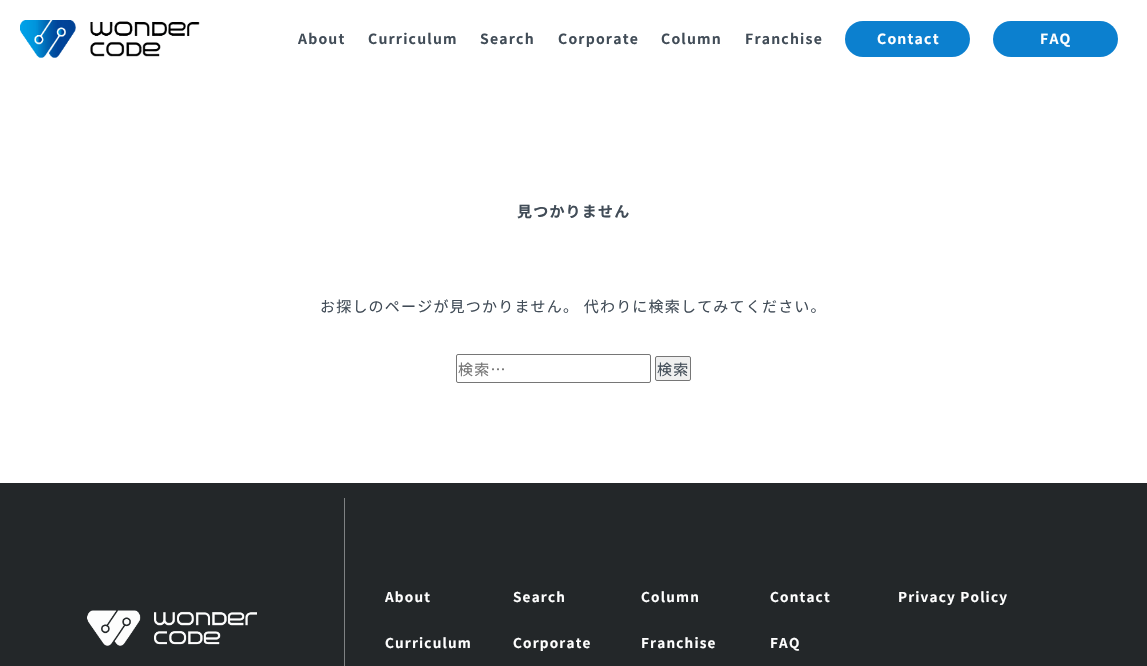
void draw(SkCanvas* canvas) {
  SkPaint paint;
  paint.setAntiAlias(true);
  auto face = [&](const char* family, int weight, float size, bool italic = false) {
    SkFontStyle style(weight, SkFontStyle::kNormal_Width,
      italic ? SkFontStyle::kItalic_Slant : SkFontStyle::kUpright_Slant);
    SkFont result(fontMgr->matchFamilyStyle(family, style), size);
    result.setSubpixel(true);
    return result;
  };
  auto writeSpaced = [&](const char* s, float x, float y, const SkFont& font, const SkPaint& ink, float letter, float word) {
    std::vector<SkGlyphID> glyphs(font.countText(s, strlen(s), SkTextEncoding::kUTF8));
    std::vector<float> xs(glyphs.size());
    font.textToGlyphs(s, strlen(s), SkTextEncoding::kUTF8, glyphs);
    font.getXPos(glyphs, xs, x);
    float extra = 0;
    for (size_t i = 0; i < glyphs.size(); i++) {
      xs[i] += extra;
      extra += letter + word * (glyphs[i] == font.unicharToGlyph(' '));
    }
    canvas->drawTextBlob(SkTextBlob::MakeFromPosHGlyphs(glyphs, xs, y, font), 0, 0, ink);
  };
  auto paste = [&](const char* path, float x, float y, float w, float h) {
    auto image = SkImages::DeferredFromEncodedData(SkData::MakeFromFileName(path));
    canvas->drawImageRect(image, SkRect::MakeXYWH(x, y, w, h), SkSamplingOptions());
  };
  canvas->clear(0xffffffff);
  paste("img/1.png", 20, 20, 180, 38);
  paint.setColor(0xff0c80cf);
  canvas->drawRoundRect(SkRect::MakeXYWH(845, 21, 125, 36), 18, 18, paint);
  canvas->drawRoundRect(SkRect::MakeXYWH(993, 21, 125, 36), 18, 18, paint);
  paint.setStroke(true);
  paint.setStrokeWidth(1);
  paint.setColor(0xff767676);
  canvas->drawRoundRect(SkRect::MakeXYWH(456.5f, 354.5f, 194, 28), 1.5f, 1.5f, paint);
  paint.setStroke(false);
  paint.setColor(0xffefefef);
  canvas->drawRoundRect(SkRect::MakeXYWH(655.5f, 356.5f, 35, 24), 1.5f, 1.5f, paint);
  paint.setStroke(true);
  paint.setColor(0xff767676);
  canvas->drawRoundRect(SkRect::MakeXYWH(655.5f, 356.5f, 35, 24), 1.5f, 1.5f, paint);
  paint.setStroke(false);
  paint.setColor(0xff232729);
  canvas->drawRect(SkRect::MakeXYWH(0, 483, 1147, 183), paint);
  paste("img/2.png", 87, 610, 170, 36);
  paint.setColor(0xff7f8283);
  canvas->drawRect(SkRect::MakeXYWH(344, 498, 1, 168), paint);
  auto f0 = face("Noto Sans JP", 700, 14);
  paint.setColor(0xff414c57);
  {
    const struct { const char* s; float x, y; } items[] = {
      {"About", 298, 44},
      {"Curriculum", 368, 44},
      {"Search", 480, 44},
      {"Corporate", 558, 44},
      {"Column", 661, 44},
      {"Franchise", 745, 44},
    };
    for (auto [s, x, y] : items) {
      writeSpaced(s, x, y, f0, paint, 1.2f, 0);
    }
  }
  paint.setColor(0xffffffff);
  writeSpaced("Contact", 877, 44, f0, paint, 1.2f, 0);
  writeSpaced("FAQ", 1040, 44, f0, paint, 1.2f, 0);
  auto f1 = face("Noto Sans JP", 700, 15);
  paint.setColor(0xff414c57);
  writeSpaced("見つかりません", 517, 217, f1, paint, 1.2f, 0);
  auto f2 = face("Noto Sans JP", 400, 15);
  writeSpaced("お探しのページが見つかりません。 代わりに検索してみてください。", 320, 312, f2, paint, 1.2f, 0);
  paint.setColor(0xff757575);
  writeSpaced("検索…", 458, 375, f2, paint, 1.2f, 0);
  paint.setColor(0xff414c57);
  writeSpaced("検索", 657, 375, f2, paint, 1.2f, 0);
  auto f3 = face("Noto Sans JP", 700, 13.5f);
  paint.setColor(0xffffffff);
  {
    const struct { const char* s; float x, y; } items[] = {
      {"About", 385, 602},
      {"Search", 513, 602},
      {"Column", 641, 602},
      {"Contact", 770, 602},
      {"Privacy Policy", 898, 602},
      {"Curriculum", 385, 648},
      {"Corporate", 513, 648},
      {"Franchise", 641, 648},
      {"FAQ", 770, 648},
    };
    for (auto [s, x, y] : items) {
      writeSpaced(s, x, y, f3, paint, 1.2f, 0);
    }
  }
}
